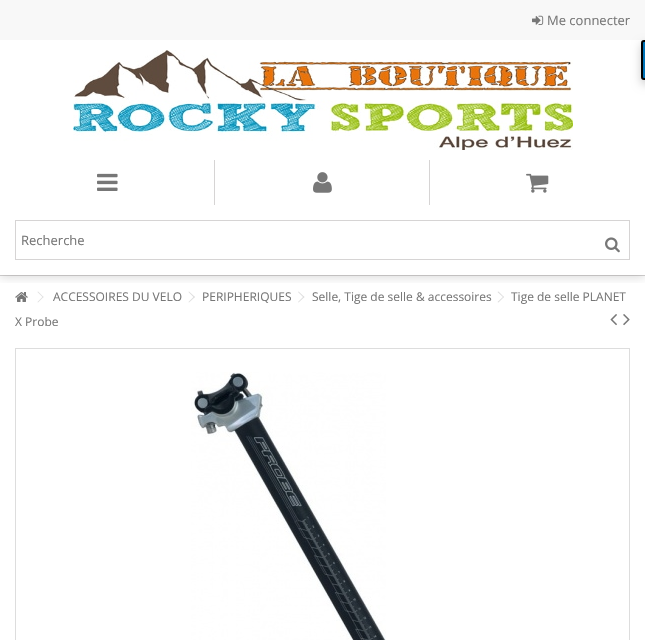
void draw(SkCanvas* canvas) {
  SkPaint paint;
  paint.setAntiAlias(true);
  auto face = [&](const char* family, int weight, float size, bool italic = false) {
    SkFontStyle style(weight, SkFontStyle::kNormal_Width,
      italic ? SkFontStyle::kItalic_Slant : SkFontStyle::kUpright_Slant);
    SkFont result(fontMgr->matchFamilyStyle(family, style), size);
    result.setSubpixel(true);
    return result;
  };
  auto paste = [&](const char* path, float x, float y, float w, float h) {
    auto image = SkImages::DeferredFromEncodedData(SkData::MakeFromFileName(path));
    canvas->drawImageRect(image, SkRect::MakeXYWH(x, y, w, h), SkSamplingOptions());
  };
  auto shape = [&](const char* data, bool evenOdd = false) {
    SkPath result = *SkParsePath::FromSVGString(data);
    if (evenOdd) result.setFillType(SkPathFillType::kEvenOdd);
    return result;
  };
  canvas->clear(0xffffffff);
  paint.setColor(0xfff8f8f8);
  canvas->drawRect(SkRect::MakeXYWH(0, 0, 645, 40), paint);
  paste("img/1.png", 532, 15, 12, 10);
  paint.setColor(0xffd6d4d4);
  canvas->drawRect(SkRect::MakeXYWH(0, 275, 645, 1), paint);
  paste("img/2.png", 73, 50, 500, 100);
  paint.setColor(0xffdddddd);
  canvas->drawPath(shape("M189 291.5L195 297L194 297.5L188.5 292Z"), paint);
  canvas->drawPath(shape("M298.5 291.5L304.5 297L303.5 297.5L298 292Z"), paint);
  canvas->drawPath(shape("M498.5 291.5L504 297L503.5 297.5L497.5 292Z"), paint);
  paste("img/7.png", 15, 292, 13, 10);
  canvas->drawPath(shape("M38 291.5L43.5 297L43 297.5L37.5 292Z"), paint);
  canvas->save();
  canvas->clipRect(SkRect::MakeXYWH(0, 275, 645, 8));
  paint.setColor(0x26000000);
  paint.setMaskFilter(SkMaskFilter::MakeBlur(kNormal_SkBlurStyle, 5));
  canvas->drawRect(SkRect::MakeXYWH(0, 207, 645, 70), paint);
  paint.setMaskFilter(nullptr);
  canvas->restore();
  paint.setColor(0xffffffff);
  canvas->drawRect(SkRect::MakeXYWH(0, 200, 645, 5), paint);
  paint.setColor(0xffd6d4d4);
  canvas->drawRect(SkRect::MakeXYWH(214, 160, 1, 45), paint);
  paste("img/3.png", 97, 173, 21, 18);
  canvas->drawRect(SkRect::MakeXYWH(429, 160, 1, 45), paint);
  paste("img/4.png", 313, 172, 19, 21);
  paste("img/5.png", 526, 173, 23, 20);
  paint.setStroke(true);
  paint.setStrokeWidth(1);
  canvas->drawRect(SkRect::MakeXYWH(15.5f, 220.5f, 614, 39), paint);
  paste("img/6.png", 605, 237, 15, 16);
  paint.setStroke(false);
  paint.setColor(0xffdddddd);
  canvas->drawPath(shape("M194 296.5L195 297L189 302.5L188.5 302Z"), paint);
  canvas->drawPath(shape("M303.5 296.5L304.5 297L298.5 302.5L298 302Z"), paint);
  canvas->drawPath(shape("M503.5 296.5L504 297L498.5 302.5L497.5 302Z"), paint);
  canvas->drawPath(shape("M43 296.5L43.5 297L38 302.5L37.5 302Z"), paint);
  paste("img/8.png", 610, 314, 7, 12);
  paste("img/9.png", 623, 314, 7, 12);
  paint.setStroke(true);
  canvas->drawRect(SkRect::MakeXYWH(15.5f, 348.5f, 614, 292), paint);
  paste("img/10.png", 191, 372, 195, 268);
  paint.setStroke(false);
  paint.setColor(0x33000000);
  paint.setMaskFilter(SkMaskFilter::MakeBlur(kNormal_SkBlurStyle, 5));
  canvas->drawRoundRect(SkRect::MakeXYWH(641, 44, 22, 40), 3, 3, paint);
  paint.setMaskFilter(nullptr);
  paint.setColor(0xff0073b7);
  canvas->drawPath(shape("M644 41H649V79H644C643 79 642 78 642 77V43C642 42 643 41 644 41Z"), paint);
  paint.setStroke(true);
  paint.setStrokeWidth(2);
  paint.setColor(0xff000000);
  canvas->drawPath(shape("M644 41H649V79H644C643 79 642 78 642 77V43C642 42 643 41 644 41Z"), paint);
  auto f0 = face("Open Sans", 400, 13);
  paint.setStroke(false);
  paint.setColor(0xff777777);
  canvas->drawString("Me connecter", 547, 25, f0, paint);
  canvas->drawString("Recherche", 21, 245, f0, paint);
  auto f1 = face("Open Sans", 400, 12);
  {
    const struct { const char* s; float x, y; } items[] = {
      {"ACCESSOIRES DU VELO", 53, 301},
      {"PERIPHERIQUES", 202, 301},
      {"Selle, Tige de selle & accessoires", 312, 301},
      {"Tige de selle PLANET", 511, 301},
      {"X Probe", 15, 326},
    };
    for (auto [s, x, y] : items) {
      canvas->drawString(s, x, y, f1, paint);
    }
  }
}
